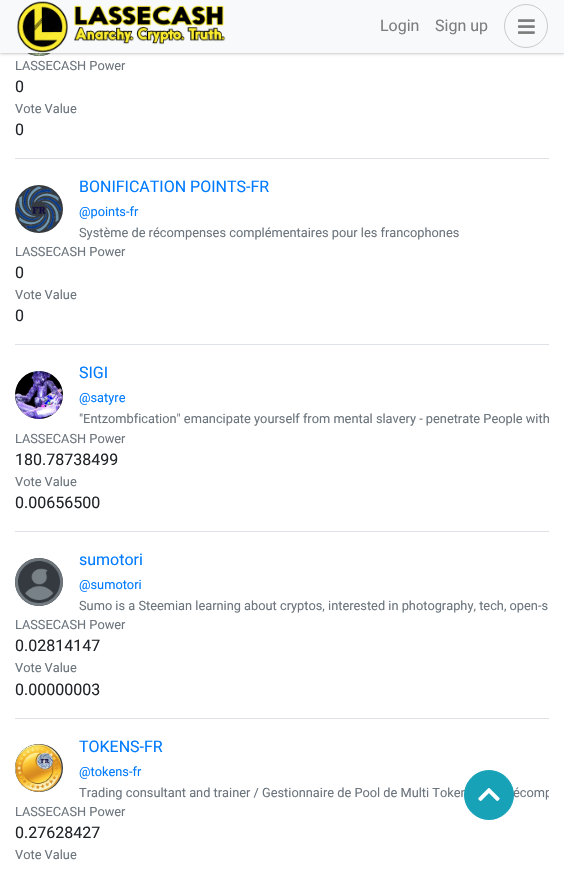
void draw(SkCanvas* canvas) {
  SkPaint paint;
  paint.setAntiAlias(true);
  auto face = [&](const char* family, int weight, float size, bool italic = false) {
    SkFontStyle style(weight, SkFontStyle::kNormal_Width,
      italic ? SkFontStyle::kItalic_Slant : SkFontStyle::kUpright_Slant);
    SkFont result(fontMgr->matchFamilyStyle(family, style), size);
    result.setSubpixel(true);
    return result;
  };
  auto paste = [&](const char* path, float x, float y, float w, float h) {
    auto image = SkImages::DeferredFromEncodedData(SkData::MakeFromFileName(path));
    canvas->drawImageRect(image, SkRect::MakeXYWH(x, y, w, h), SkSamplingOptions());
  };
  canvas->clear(0xffffffff);
  paint.setColor(0xff343a40);
  canvas->drawCircle(39, 32, 24, paint);
  paste("img/3.png", 28, 53, 22, 3);
  paint.setColor(0x24000000);
  paint.setMaskFilter(SkMaskFilter::MakeBlur(kNormal_SkBlurStyle, 1));
  canvas->drawRect(SkRect::MakeXYWH(0, 1, 564, 53), paint);
  paint.setMaskFilter(nullptr);
  paint.setColor(0x12000000);
  paint.setMaskFilter(SkMaskFilter::MakeBlur(kNormal_SkBlurStyle, 1.5f));
  canvas->drawRect(SkRect::MakeXYWH(0, 1, 564, 53), paint);
  paint.setMaskFilter(nullptr);
  paint.setColor(0xfff8f9fa);
  canvas->drawRect(SkRect::MakeXYWH(0, 0, 564, 53), paint);
  paste("img/1.png", 17, 1, 209, 52);
  paint.setStroke(true);
  paint.setStrokeWidth(1);
  paint.setColor(0xffcacaca);
  canvas->drawCircle(526, 26, 21.5f, paint);
  paste("img/2.png", 518, 19, 17, 15);
  paint.setStroke(false);
  paint.setColor(0xffdee2e6);
  canvas->drawRect(SkRect::MakeXYWH(15, 158, 534, 1), paint);
  canvas->drawRect(SkRect::MakeXYWH(15, 344, 534, 1), paint);
  paint.setColor(0xff343a40);
  canvas->drawCircle(39, 209, 24, paint);
  paste("img/4.png", 16, 186, 46, 46);
  paint.setColor(0xffdee2e6);
  canvas->drawRect(SkRect::MakeXYWH(15, 531, 534, 1), paint);
  paint.setColor(0xff343a40);
  canvas->drawCircle(39, 395, 24, paint);
  paste("img/5.png", 15, 371, 48, 48);
  paint.setColor(0xffdee2e6);
  canvas->drawRect(SkRect::MakeXYWH(15, 718, 534, 1), paint);
  paint.setColor(0xff343a40);
  canvas->drawCircle(39, 582, 24, paint);
  paste("img/6.png", 15, 558, 48, 48);
  canvas->drawCircle(39, 768, 24, paint);
  paste("img/7.png", 15, 744, 47, 48);
  auto f0 = face("Roboto", 400, 16);
  paint.setColor(0xff7c7d7d);
  canvas->drawString("Login", 380, 31, f0, paint);
  canvas->drawString("Sign up", 435, 31, f0, paint);
  auto f1 = face("Roboto", 400, 12.8f);
  paint.setColor(0xff6c757d);
  canvas->drawString("LASSECASH Power", 15, 70, f1, paint);
  paint.setColor(0xff212529);
  canvas->drawString("0", 15, 92, f0, paint);
  paint.setColor(0xff6c757d);
  canvas->drawString("Vote Value", 15, 113, f1, paint);
  paint.setColor(0xff212529);
  canvas->drawString("0", 15, 135, f0, paint);
  paint.setColor(0xff007bff);
  canvas->drawString("BONIFICATION POINTS-FR", 79, 192, f0, paint);
  canvas->drawString("@points-fr", 79, 216, f1, paint);
  paint.setColor(0xff6c757d);
  canvas->drawString("Système de récompenses complémentaires pour les francophones", 79, 237, f1, paint);
  canvas->drawString("LASSECASH Power", 15, 256, f1, paint);
  paint.setColor(0xff212529);
  canvas->drawString("0", 15, 278, f0, paint);
  paint.setColor(0xff6c757d);
  canvas->drawString("Vote Value", 15, 299, f1, paint);
  paint.setColor(0xff212529);
  canvas->drawString("0", 15, 321, f0, paint);
  paint.setColor(0xff007bff);
  canvas->drawString("SIGI", 79, 378, f0, paint);
  canvas->drawString("@satyre", 79, 402, f1, paint);
  paint.setColor(0xff6c757d);
  canvas->drawString("\"Entzombfication\" emancipate yourself from mental slavery - penetrate People with", 79, 423, f1, paint);
  canvas->drawString("LASSECASH Power", 15, 443, f1, paint);
  paint.setColor(0xff212529);
  canvas->drawString("180.78738499", 15, 465, f0, paint);
  paint.setColor(0xff6c757d);
  canvas->drawString("Vote Value", 15, 486, f1, paint);
  paint.setColor(0xff212529);
  canvas->drawString("0.00656500", 15, 508, f0, paint);
  paint.setColor(0xff007bff);
  canvas->drawString("sumotori", 79, 565, f0, paint);
  canvas->drawString("@sumotori", 79, 589, f1, paint);
  paint.setColor(0xff6c757d);
  canvas->drawString("Sumo is a Steemian learning about cryptos, interested in photography, tech, open-s", 79, 610, f1, paint);
  canvas->drawString("LASSECASH Power", 15, 629, f1, paint);
  paint.setColor(0xff212529);
  canvas->drawString("0.02814147", 15, 651, f0, paint);
  paint.setColor(0xff6c757d);
  canvas->drawString("Vote Value", 15, 672, f1, paint);
  paint.setColor(0xff212529);
  canvas->drawString("0.00000003", 15, 695, f0, paint);
  paint.setColor(0xff007bff);
  canvas->drawString("TOKENS-FR", 79, 752, f0, paint);
  canvas->drawString("@tokens-fr", 79, 776, f1, paint);
  paint.setColor(0xff6c757d);
  canvas->drawString("Trading consultant and trainer / Gestionnaire de Pool de Multi Token", 79, 797, f1, paint);
  canvas->save();
  canvas->clipRect(SkRect::MakeXYWH(79, 735, 470, 67));
  canvas->drawString("écomp", 513, 797, f1, paint);
  canvas->restore();
  canvas->drawString("LASSECASH Power", 15, 816, f1, paint);
  paint.setColor(0xff212529);
  canvas->drawString("0.27628427", 15, 838, f0, paint);
  paint.setColor(0xff6c757d);
  canvas->drawString("Vote Value", 15, 859, f1, paint);
  paint.setColor(0xff17a2b8);
  canvas->drawCircle(489, 795, 24.5f, paint);
  paint.setStroke(true);
  canvas->drawCircle(489, 795, 24.5f, paint);
  paste("img/8.png", 478, 788, 22, 13);
}
